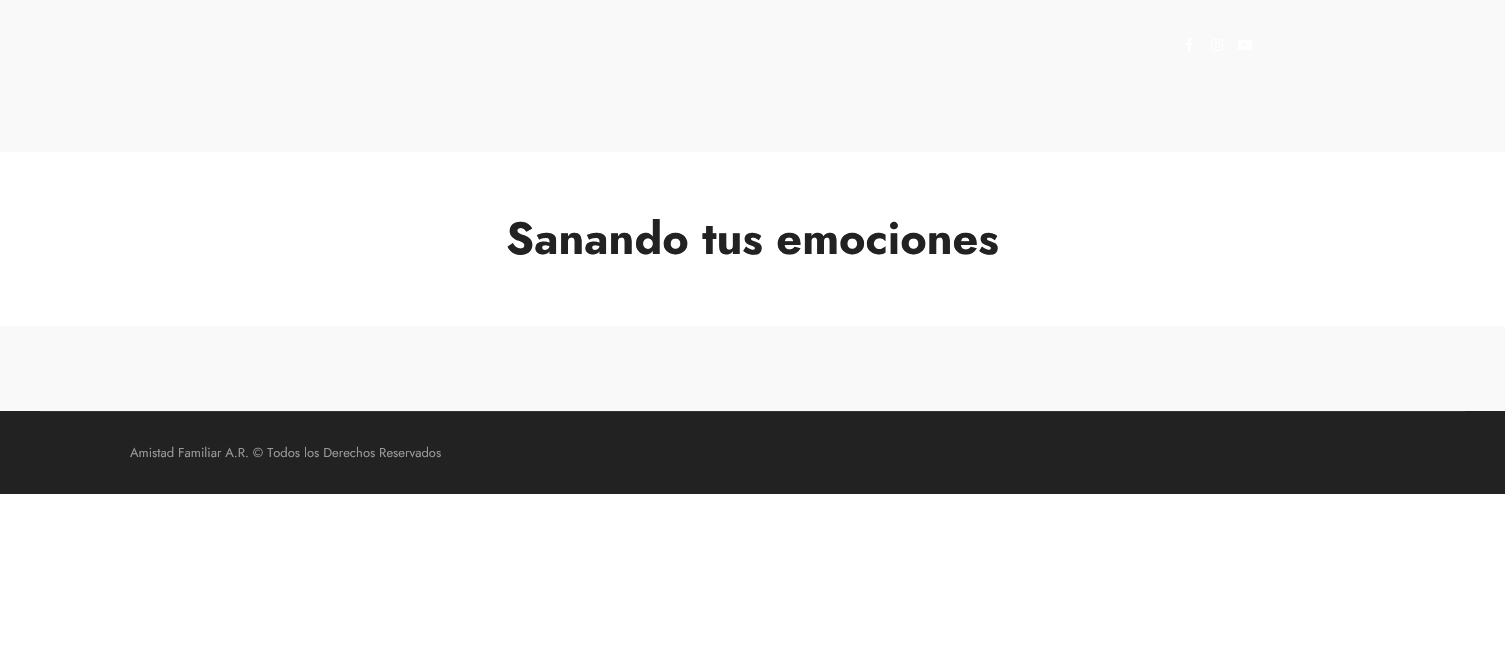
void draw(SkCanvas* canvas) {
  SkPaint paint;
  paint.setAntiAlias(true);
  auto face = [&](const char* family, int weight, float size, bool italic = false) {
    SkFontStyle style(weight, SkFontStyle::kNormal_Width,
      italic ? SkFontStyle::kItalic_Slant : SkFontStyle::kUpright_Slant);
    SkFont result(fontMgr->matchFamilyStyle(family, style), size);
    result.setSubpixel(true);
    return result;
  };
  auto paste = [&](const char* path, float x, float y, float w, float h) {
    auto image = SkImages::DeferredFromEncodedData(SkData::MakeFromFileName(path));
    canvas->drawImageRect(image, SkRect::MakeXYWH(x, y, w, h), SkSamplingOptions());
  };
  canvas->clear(0xffffffff);
  paint.setColor(0xfff9f9f9);
  canvas->drawRect(SkRect::MakeXYWH(0, 0, 1505, 411), paint);
  paste("img/1.png", 1185, 38, 8, 14);
  paste("img/2.png", 1211, 39, 12, 12);
  paste("img/3.png", 1238, 40, 14, 10);
  {
    const struct { float x, y, w, h; SkColor color; } items[] = {
      {0, 152, 1505, 174, 0xffffffff},
      {0, 411, 1505, 83, 0xff222222},
      {40, 411, 1425, 1, 0xff333333},
    };
    for (auto [x, y, w, h, color] : items) {
      paint.setColor(color);
      canvas->drawRect(SkRect::MakeXYWH(x, y, w, h), paint);
    }
  }
  auto f0 = face("Jost", 700, 45);
  paint.setColor(0xff222222);
  canvas->drawString("Sanando tus emociones", 506, 254, f0, paint);
  auto f1 = face("Jost", 400, 13);
  paint.setColor(0xff999999);
  canvas->drawString("Amistad Familiar A.R. © Todos los Derechos Reservados", 130, 457, f1, paint);
}
